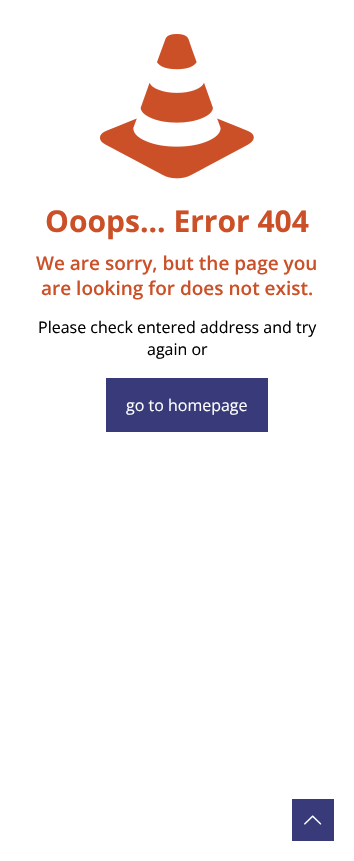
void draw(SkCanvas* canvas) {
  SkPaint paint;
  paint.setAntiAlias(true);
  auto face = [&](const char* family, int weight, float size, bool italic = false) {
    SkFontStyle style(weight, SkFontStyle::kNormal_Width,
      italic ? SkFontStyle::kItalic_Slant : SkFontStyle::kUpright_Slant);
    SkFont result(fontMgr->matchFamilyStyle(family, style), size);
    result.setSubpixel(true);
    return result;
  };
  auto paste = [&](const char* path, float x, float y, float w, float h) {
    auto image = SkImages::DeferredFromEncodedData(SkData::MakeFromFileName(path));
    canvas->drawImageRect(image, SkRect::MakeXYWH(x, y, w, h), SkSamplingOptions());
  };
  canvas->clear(0xffffffff);
  paste("img/1.png", 100, 34, 154, 145);
  paint.setColor(0xff383a7a);
  canvas->drawRect(SkRect::MakeXYWH(106, 378, 162, 54), paint);
  canvas->drawRect(SkRect::MakeXYWH(292, 799, 42, 42), paint);
  paste("img/2.png", 304, 815, 18, 10);
  auto f0 = face("Open Sans", 700, 30);
  paint.setColor(0xffcc5027);
  canvas->drawString("Ooops... Error 404", 45, 232, f0, paint);
  auto f1 = face("Open Sans", 600, 19);
  canvas->drawString("We are sorry, but the page you", 36, 270, f1, paint);
  canvas->drawString("are looking for does not exist.", 41, 295, f1, paint);
  auto f2 = face("Open Sans", 400, 16);
  paint.setColor(0xff000000);
  canvas->drawString("Please check entered address and try", 38, 333, f2, paint);
  canvas->drawString("again or", 147, 355, f2, paint);
  paint.setColor(0xffffffff);
  canvas->drawString("go to homepage", 126, 411, f2, paint);
}
